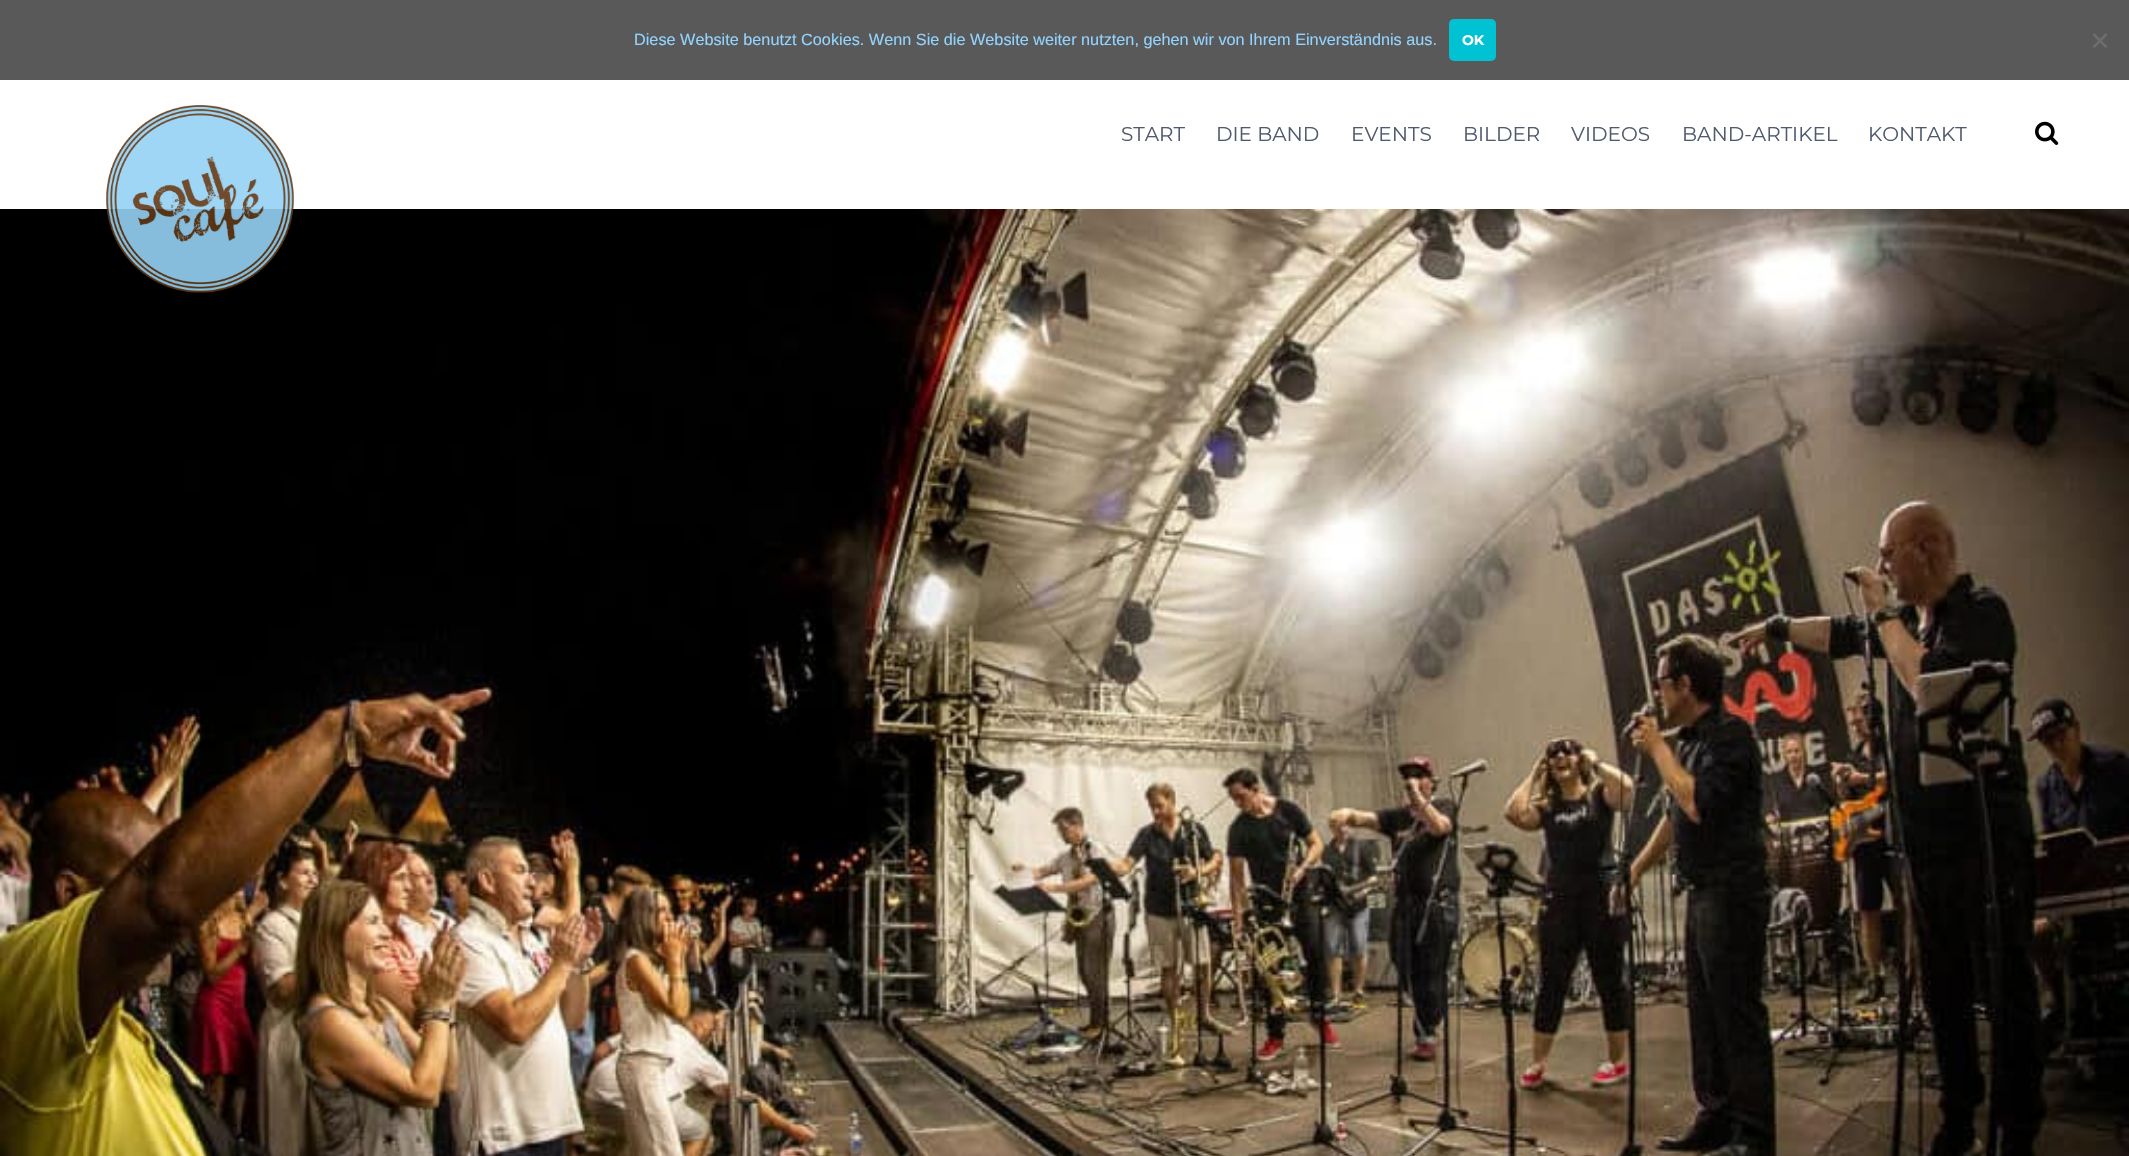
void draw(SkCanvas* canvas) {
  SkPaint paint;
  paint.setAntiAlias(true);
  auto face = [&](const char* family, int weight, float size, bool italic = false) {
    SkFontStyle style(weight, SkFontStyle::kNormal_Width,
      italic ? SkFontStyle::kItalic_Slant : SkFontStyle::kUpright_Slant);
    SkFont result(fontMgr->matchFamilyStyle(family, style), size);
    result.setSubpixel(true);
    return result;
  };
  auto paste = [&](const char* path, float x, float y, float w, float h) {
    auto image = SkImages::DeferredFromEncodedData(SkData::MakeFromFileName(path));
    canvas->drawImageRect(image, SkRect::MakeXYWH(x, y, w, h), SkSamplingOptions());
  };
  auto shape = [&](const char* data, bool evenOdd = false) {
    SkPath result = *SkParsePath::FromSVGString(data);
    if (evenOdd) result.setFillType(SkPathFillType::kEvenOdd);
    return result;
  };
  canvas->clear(0xffffffff);
  paint.setColor(0xff595959);
  canvas->drawRect(SkRect::MakeXYWH(0, 0, 2129, 80), paint);
  paint.setColor(0xff01c2d3);
  canvas->drawRoundRect(SkRect::MakeXYWH(1449, 19, 47, 42), 5, 5, paint);
  paint.setColor(0xff6d6d6d);
  canvas->drawPath(shape("M2105.5 33L2107.5 35L2094.5 48L2092.5 46.5Z"), paint);
  canvas->drawPath(shape("M2092.5 35L2094.5 33L2107.5 46.5L2105.5 48Z"), paint);
  paste("img/3.png", 0, 209, 2129, 947);
  paste("img/1.png", 106, 105, 188, 188);
  paste("img/2.png", 2035, 121, 24, 24);
  auto f0 = face("Liberation Sans", 400, 16.25f);
  paint.setColor(0xff93d4ff);
  canvas->drawString("Diese Website benutzt Cookies. Wenn Sie die Website weiter nutzten, gehen wir von Ihrem Einverständnis aus.", 634, 45, f0, paint);
  auto f1 = face("Montserrat", 700, 14);
  paint.setColor(0xffffffff);
  canvas->drawString("OK", 1462, 45, f1, paint);
  auto f2 = face("Montserrat", 400, 20);
  paint.setColor(0xff4f5a6e);
  {
    const struct { const char* s; float x, y; } items[] = {
      {"START", 1121, 141},
      {"DIE BAND", 1216, 141},
      {"EVENTS", 1351, 141},
      {"BILDER", 1463, 141},
      {"VIDEOS", 1571, 141},
      {"BAND-ARTIKEL", 1682, 141},
      {"KONTAKT", 1868, 141},
    };
    for (auto [s, x, y] : items) {
      canvas->drawString(s, x, y, f2, paint);
    }
  }
}
